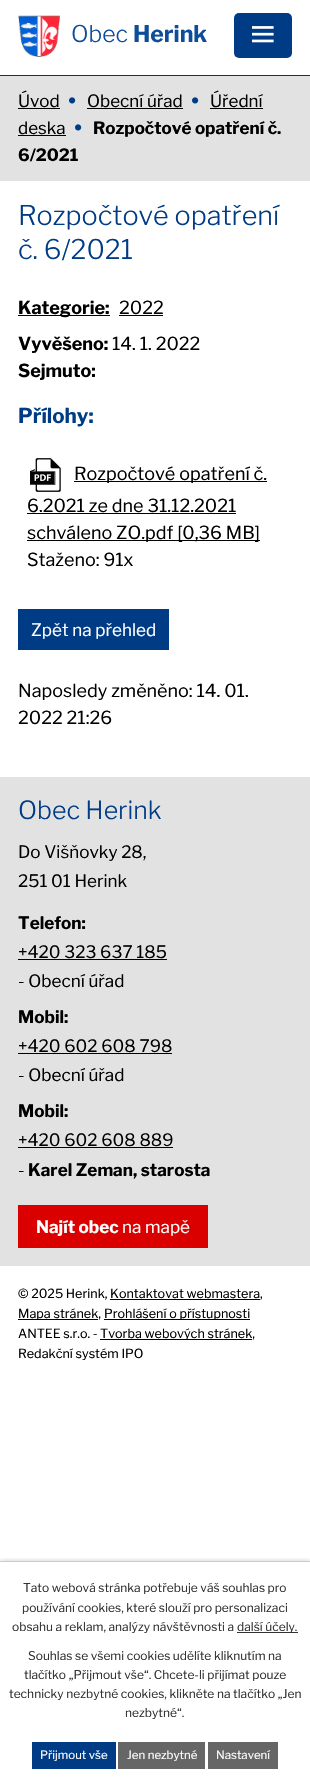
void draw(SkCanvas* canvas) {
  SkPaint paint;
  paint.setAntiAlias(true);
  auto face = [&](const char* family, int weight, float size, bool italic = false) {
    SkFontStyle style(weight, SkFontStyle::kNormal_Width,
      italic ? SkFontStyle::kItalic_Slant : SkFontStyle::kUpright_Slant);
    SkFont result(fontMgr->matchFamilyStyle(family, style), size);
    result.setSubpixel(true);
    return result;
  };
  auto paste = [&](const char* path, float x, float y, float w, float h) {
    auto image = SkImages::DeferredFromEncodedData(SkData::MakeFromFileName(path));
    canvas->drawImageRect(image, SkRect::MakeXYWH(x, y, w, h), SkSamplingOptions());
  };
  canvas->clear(0xffffffff);
  paste("img/1.png", 18, 15, 42, 42);
  paint.setColor(0xff003c85);
  canvas->drawRoundRect(SkRect::MakeXYWH(234, 13, 58, 45), 5, 5, paint);
  paste("img/2.png", 252, 26, 22, 17);
  {
    const struct { float x, y, w, h; SkColor color; } items[] = {
      {0, 76, 310, 105, 0xffe2e2e2},
      {0, 75, 310, 1, 0xff003474},
      {18, 108, 42, 1, 0xff000000},
    };
    for (auto [x, y, w, h, color] : items) {
      paint.setColor(color);
      canvas->drawRect(SkRect::MakeXYWH(x, y, w, h), paint);
    }
  }
  paste("img/3.png", 69, 97, 7, 7);
  canvas->drawRect(SkRect::MakeXYWH(87, 108, 96, 1), paint);
  paste("img/3.png", 192, 97, 7, 7);
  canvas->drawRect(SkRect::MakeXYWH(210, 108, 53, 1), paint);
  canvas->drawRect(SkRect::MakeXYWH(18, 135, 48, 1), paint);
  paste("img/3.png", 75, 124, 7, 7);
  canvas->drawRect(SkRect::MakeXYWH(18, 315, 92, 1), paint);
  canvas->drawRect(SkRect::MakeXYWH(119, 315, 44, 1), paint);
  paste("img/4.png", 30, 458, 31, 34);
  {
    const struct { float x, y, w, h; SkColor color; } items[] = {
      {74, 481, 193, 1, 0xff000000},
      {27, 513, 209, 1, 0xff000000},
      {27, 540, 233, 1, 0xff000000},
      {18, 609, 151, 41, 0xff003c85},
      {0, 777, 310, 489, 0xffe2e2e2},
      {18, 959, 149, 1, 0xff000000},
      {18, 1053, 154, 1, 0xff000000},
      {18, 1147, 155, 1, 0xff000000},
      {18, 1205, 190, 43, 0xffda0000},
      {110, 1299, 150, 1, 0xff000000},
      {18, 1319, 80, 1, 0xff000000},
      {104, 1319, 146, 1, 0xff000000},
      {100, 1339, 152, 1, 0xff000000},
    };
    for (auto [x, y, w, h, color] : items) {
      paint.setColor(color);
      canvas->drawRect(SkRect::MakeXYWH(x, y, w, h), paint);
    }
  }
  canvas->save();
  canvas->clipRect(SkRect::MakeXYWH(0, 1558, 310, 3));
  paint.setColor(0x33000000);
  paint.setMaskFilter(SkMaskFilter::MakeBlur(kNormal_SkBlurStyle, 2.5f));
  canvas->drawRect(SkRect::MakeXYWH(0, 1561, 310, 223), paint);
  paint.setMaskFilter(nullptr);
  canvas->restore();
  {
    const struct { float x, y, w, h; SkColor color; } items[] = {
      {0, 1561, 310, 1, 0xffcccccc},
      {237, 1632, 61, 1, 0xff333333},
      {32, 1742, 84, 27, 0xff003c85},
      {118, 1742, 87, 27, 0xff666666},
      {208, 1742, 70, 27, 0xff666666},
    };
    for (auto [x, y, w, h, color] : items) {
      paint.setColor(color);
      canvas->drawRect(SkRect::MakeXYWH(x, y, w, h), paint);
    }
  }
  auto f0 = face("Libre Franklin", 300, 23);
  paint.setColor(0xff0d4d9a);
  canvas->drawString("Obec", 71, 42, f0, paint);
  auto f1 = face("Libre Franklin", 700, 23);
  canvas->drawString("Herink", 133, 42, f1, paint);
  auto f2 = face("Libre Franklin", 400, 17);
  paint.setColor(0xff000000);
  {
    const struct { const char* s; float x, y; } items[] = {
      {"Úvod", 18, 107},
      {"Obecní úřad", 87, 107},
      {"Úřední", 210, 107},
      {"deska", 18, 134},
    };
    for (auto [s, x, y] : items) {
      canvas->drawString(s, x, y, f2, paint);
    }
  }
  auto f3 = face("Libre Franklin", 700, 17);
  canvas->drawString("Rozpočtové opatření č.", 93, 134, f3, paint);
  canvas->drawString("6/2021", 18, 161, f3, paint);
  auto f4 = face("Libre Franklin", 300, 27);
  paint.setColor(0xff003c85);
  canvas->drawString("Rozpočtové opatření", 18, 225, f4, paint);
  canvas->drawString("č. 6/2021", 18, 259, f4, paint);
  auto f5 = face("Libre Franklin", 700, 18);
  paint.setColor(0xff000000);
  canvas->drawString("Kategorie:", 18, 314, f5, paint);
  auto f6 = face("Libre Franklin", 400, 18);
  canvas->drawString("2022", 119, 314, f6, paint);
  canvas->drawString("Vyvěšeno:", 18, 350, f5, paint);
  canvas->drawString("14. 1. 2022", 112, 350, f6, paint);
  canvas->drawString("Sejmuto:", 18, 377, f5, paint);
  auto f7 = face("Libre Franklin", 700, 20.5f);
  paint.setColor(0xff003c85);
  canvas->drawString("Přílohy:", 18, 423, f7, paint);
  paint.setColor(0xff000000);
  {
    const struct { const char* s; float x, y; } items[] = {
      {"Rozpočtové opatření č.", 74, 480},
      {"6.2021 ze dne 31.12.2021", 27, 512},
      {"schváleno ZO.pdf [0,36 MB]", 27, 539},
      {"Staženo: 91x", 27, 566},
    };
    for (auto [s, x, y] : items) {
      canvas->drawString(s, x, y, f6, paint);
    }
  }
  auto f8 = face("Libre Franklin", 400, 17.1f);
  paint.setColor(0xffffffff);
  canvas->drawString("Zpět na přehled", 31, 636, f8, paint);
  paint.setColor(0xff000000);
  canvas->drawString("Naposledy změněno: 14. 01.", 18, 697, f6, paint);
  canvas->drawString("2022 21:26", 18, 724, f6, paint);
  auto f9 = face("Libre Franklin", 300, 25);
  paint.setColor(0xff003c85);
  canvas->drawString("Obec Herink", 18, 819, f9, paint);
  paint.setColor(0xff000000);
  canvas->drawString("Do Višňovky 28,", 18, 858, f8, paint);
  canvas->drawString("251 01 Herink", 18, 887, f8, paint);
  auto f10 = face("Libre Franklin", 700, 17.1f);
  canvas->drawString("Telefon:", 18, 929, f10, paint);
  canvas->drawString("+420 323 637 185", 18, 958, f8, paint);
  canvas->drawString("- Obecní úřad", 18, 987, f8, paint);
  canvas->drawString("Mobil:", 18, 1023, f10, paint);
  canvas->drawString("+420 602 608 798", 18, 1052, f8, paint);
  canvas->drawString("- Obecní úřad", 18, 1081, f8, paint);
  canvas->drawString("Mobil:", 18, 1117, f10, paint);
  canvas->drawString("+420 602 608 889", 18, 1146, f8, paint);
  canvas->drawString("-", 18, 1176, f8, paint);
  canvas->drawString("Karel Zeman, starosta", 28, 1176, f10, paint);
  paint.setColor(0xffffffff);
  canvas->drawString("Najít obec", 36, 1233, f10, paint);
  canvas->drawString("na mapě", 122, 1233, f8, paint);
  auto f11 = face("Libre Franklin", 400, 12.6f);
  paint.setColor(0xff000000);
  {
    const struct { const char* s; float x, y; } items[] = {
      {"© 2025 Herink, Kontaktovat webmastera,", 18, 1298},
      {"Mapa stránek,", 18, 1318},
      {"Prohlášení o přístupnosti", 104, 1318},
      {"ANTEE s.r.o. -", 18, 1338},
      {"Tvorba webových stránek,", 100, 1338},
      {"Redakční systém IPO", 18, 1358},
    };
    for (auto [s, x, y] : items) {
      canvas->drawString(s, x, y, f11, paint);
    }
  }
  auto f12 = face("Libre Franklin", 400, 12);
  paint.setColor(0xff333333);
  {
    const struct { const char* s; float x, y; } items[] = {
      {"Tato webová stránka potřebuje váš souhlas pro", 23, 1592},
      {"používání cookies, které slouží pro personalizaci", 22, 1612},
      {"obsahu a reklam, analýzy návštěvnosti a", 12, 1631},
      {"další účely.", 237, 1631},
      {"Souhlas se všemi cookies udělíte kliknutím na", 28, 1660},
      {"tlačítko „Přijmout vše“. Chcete-li přijímat pouze", 24, 1679},
      {"technicky nezbytné cookies, klikněte na tlačítko „Jen", 9, 1698},
      {"nezbytné“.", 125, 1717},
    };
    for (auto [s, x, y] : items) {
      canvas->drawString(s, x, y, f12, paint);
    }
  }
  auto f13 = face("Libre Franklin", 400, 11.5f);
  paint.setColor(0xffffffff);
  {
    const struct { const char* s; float x, y; } items[] = {
      {"Přijmout vše", 40, 1759},
      {"Jen nezbytné", 127, 1759},
      {"Nastavení", 216, 1759},
    };
    for (auto [s, x, y] : items) {
      canvas->drawString(s, x, y, f13, paint);
    }
  }
}
